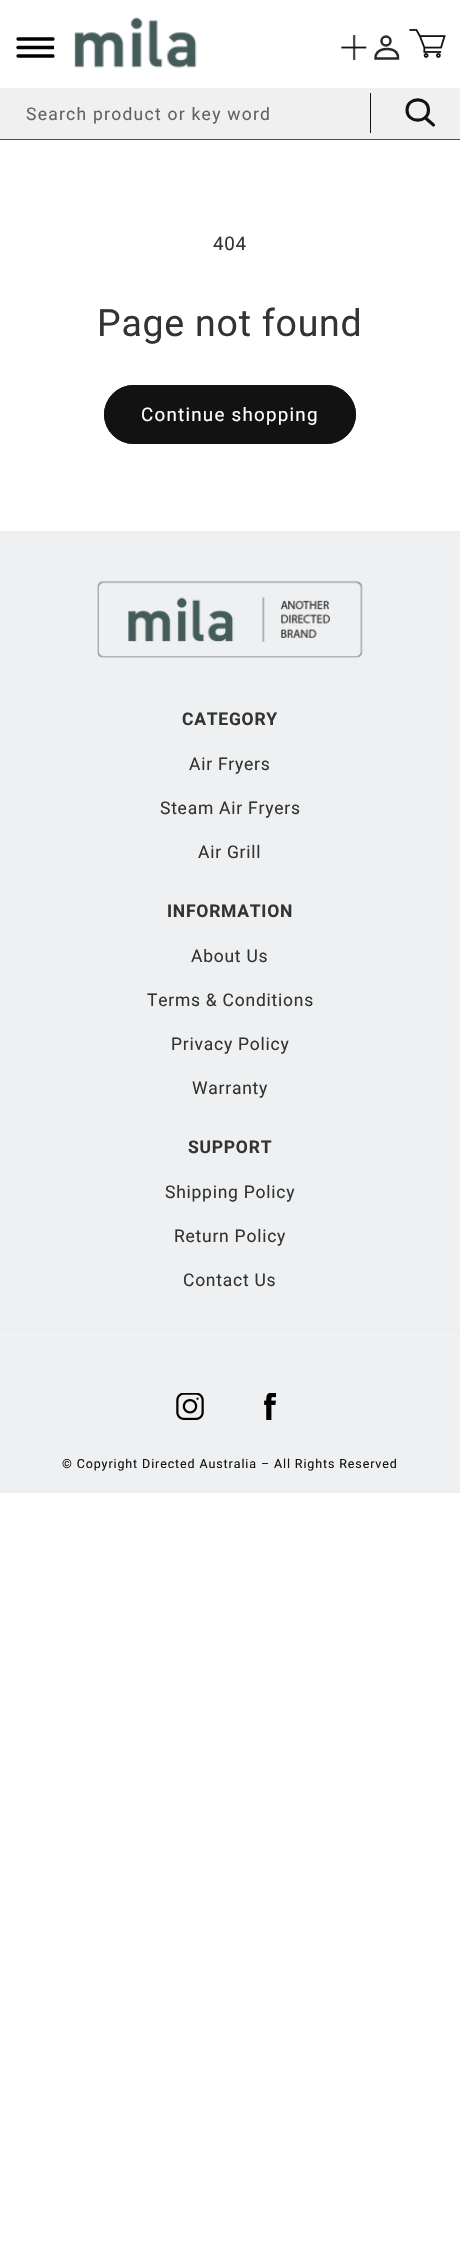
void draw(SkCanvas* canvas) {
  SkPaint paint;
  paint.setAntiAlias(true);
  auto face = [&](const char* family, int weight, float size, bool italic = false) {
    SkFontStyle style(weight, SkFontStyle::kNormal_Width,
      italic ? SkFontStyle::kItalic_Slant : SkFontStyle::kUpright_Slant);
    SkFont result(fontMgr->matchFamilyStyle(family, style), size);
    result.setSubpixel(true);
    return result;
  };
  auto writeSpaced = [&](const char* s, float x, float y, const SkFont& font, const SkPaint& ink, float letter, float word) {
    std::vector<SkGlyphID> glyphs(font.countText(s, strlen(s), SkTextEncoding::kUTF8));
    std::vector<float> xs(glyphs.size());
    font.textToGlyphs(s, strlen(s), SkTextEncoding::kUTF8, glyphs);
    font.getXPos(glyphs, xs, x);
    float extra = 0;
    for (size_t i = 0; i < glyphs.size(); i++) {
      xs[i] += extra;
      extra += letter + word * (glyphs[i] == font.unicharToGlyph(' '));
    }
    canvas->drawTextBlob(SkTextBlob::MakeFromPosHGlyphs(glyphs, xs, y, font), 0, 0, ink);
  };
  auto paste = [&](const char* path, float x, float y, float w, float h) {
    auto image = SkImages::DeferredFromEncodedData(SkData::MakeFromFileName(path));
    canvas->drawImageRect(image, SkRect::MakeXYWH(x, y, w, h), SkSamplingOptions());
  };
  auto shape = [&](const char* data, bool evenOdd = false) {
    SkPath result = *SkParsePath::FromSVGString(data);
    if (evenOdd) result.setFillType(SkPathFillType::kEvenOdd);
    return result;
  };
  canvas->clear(0xffffffff);
  paint.setColor(0xff504e4c);
  canvas->drawRect(SkRect::MakeXYWH(0, 139, 460, 1), paint);
  paint.setColor(0xffefefef);
  canvas->drawRect(SkRect::MakeXYWH(0, 138, 460, 1), paint);
  paint.setStroke(true);
  paint.setStrokeWidth(3.3f);
  paint.setStrokeCap(SkPaint::kRound_Cap);
  paint.setColor(0xff000000);
  canvas->drawPath(shape("M18 39H53"), paint);
  canvas->save();
  canvas->clipRect(SkRect::MakeXYWH(16, 35, 38, 25));
  canvas->drawPath(shape("M18 47.5H53"), paint);
  canvas->restore();
  canvas->drawPath(shape("M18 56H53"), paint);
  paste("img/1.png", 74, 17, 123, 51);
  paste("img/2.png", 341, 35, 26, 25);
  paint.setStrokeWidth(2.5f);
  paint.setStrokeCap(SkPaint::kButt_Cap);
  paint.setColor(0xff2d2926);
  canvas->drawCircle(386, 41, 4.5f, paint);
  canvas->drawPath(shape("M387 49C377 49 375 55.5 375.5 58.5H398C398.5 55.5 397 49 387 49Z"), paint);
  paste("img/3.png", 409, 29, 37, 29);
  paint.setStroke(false);
  paint.setColor(0xfff0f0f0);
  canvas->drawRect(SkRect::MakeXYWH(0, 88, 460, 50), paint);
  paint.setColor(0xff121212);
  canvas->drawRect(SkRect::MakeXYWH(370, 93, 1, 40), paint);
  paint.setStroke(true);
  paint.setStrokeWidth(3.1f);
  canvas->drawPath(shape("M428.5 110C428.5 123.5 407 123.5 407 110C407 96.5 428.5 96.5 428.5 110Z"), paint);
  paint.setStrokeCap(SkPaint::kRound_Cap);
  canvas->drawPath(shape("M425.5 118L433.5 125"), paint);
  paint.setStroke(false);
  canvas->drawRoundRect(SkRect::MakeXYWH(104, 385, 252, 59), 29.5f, 29.5f, paint);
  paint.setStroke(true);
  paint.setStrokeWidth(1);
  paint.setStrokeCap(SkPaint::kButt_Cap);
  canvas->drawRoundRect(SkRect::MakeXYWH(104.5f, 385.5f, 251, 58), 29, 29, paint);
  paint.setStroke(false);
  paint.setColor(0xffeff0f1);
  canvas->drawRect(SkRect::MakeXYWH(0, 531, 460, 962), paint);
  paste("img/4.png", 97, 581, 266, 77);
  paint.setColor(0xffececec);
  canvas->drawRect(SkRect::MakeXYWH(0, 1328, 460, 1), paint);
  paste("img/5.png", 176, 1393, 28, 27);
  paste("img/6.png", 264, 1393, 12, 27);
  auto f0 = face("Roboto", 400, 17.5f);
  paint.setColor(0xff626262);
  writeSpaced("Search product or key word", 26, 120, f0, paint, 1.25f, 0);
  auto f1 = face("Roboto", 400, 18.75f);
  paint.setColor(0xff333333);
  writeSpaced("404", 213, 250, f1, paint, 0.75f, 0);
  auto f2 = face("Roboto", 400, 37.5f);
  writeSpaced("Page not found", 97, 336, f2, paint, 0.75f, 0);
  paint.setColor(0xffffffff);
  writeSpaced("Continue shopping", 141, 421, f1, paint, 1.25f, 0);
  auto f3 = face("Roboto", 700, 17.5f);
  paint.setColor(0xff333333);
  writeSpaced("CATEGORY", 182, 725, f3, paint, 0.75f, 0);
  {
    const struct { const char* s; float x, y; } items[] = {
      {"Air Fryers", 189, 770},
      {"Steam Air Fryers", 160, 814},
      {"Air Grill", 198, 858},
    };
    for (auto [s, x, y] : items) {
      writeSpaced(s, x, y, f0, paint, 0.75f, 0);
    }
  }
  writeSpaced("INFORMATION", 167, 917, f3, paint, 0.75f, 0);
  {
    const struct { const char* s; float x, y; } items[] = {
      {"About Us", 191, 962},
      {"Terms & Conditions", 147, 1006},
      {"Privacy Policy", 171, 1050},
      {"Warranty", 192, 1094},
    };
    for (auto [s, x, y] : items) {
      writeSpaced(s, x, y, f0, paint, 0.75f, 0);
    }
  }
  writeSpaced("SUPPORT", 188, 1153, f3, paint, 0.75f, 0);
  {
    const struct { const char* s; float x, y; } items[] = {
      {"Shipping Policy", 165, 1198},
      {"Return Policy", 174, 1242},
      {"Contact Us", 183, 1286},
    };
    for (auto [s, x, y] : items) {
      writeSpaced(s, x, y, f0, paint, 0.75f, 0);
    }
  }
  auto f4 = face("Roboto", 400, 12.5f);
  paint.setColor(0xff121212);
  writeSpaced("© Copyright Directed Australia – All Rights Reserved", 62, 1468, f4, paint, 0.88f, 0);
}
